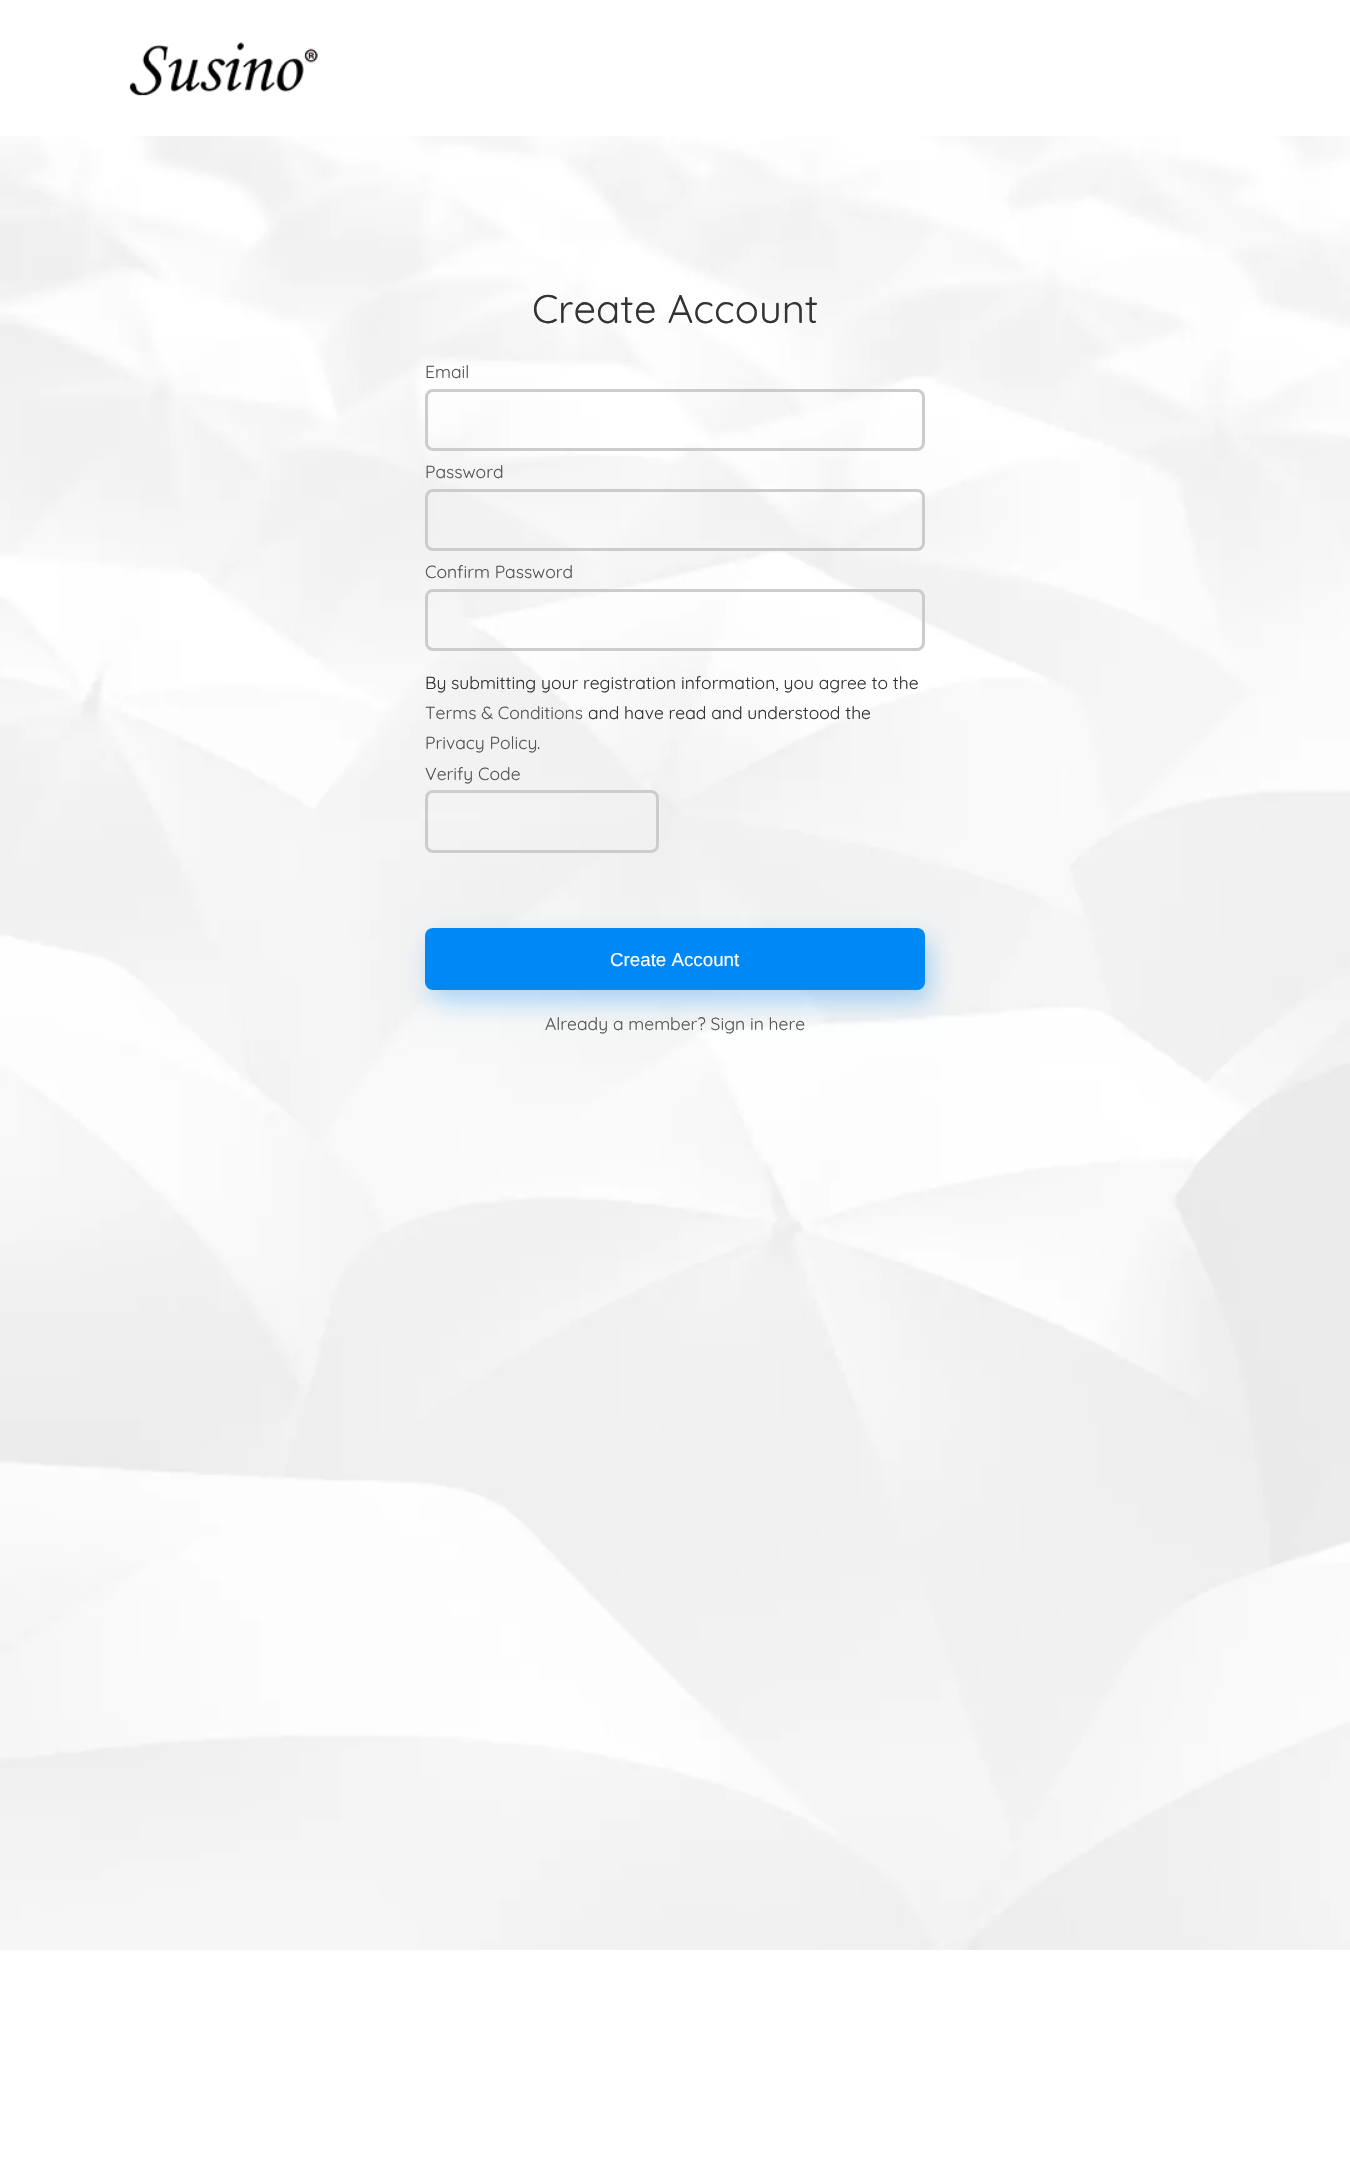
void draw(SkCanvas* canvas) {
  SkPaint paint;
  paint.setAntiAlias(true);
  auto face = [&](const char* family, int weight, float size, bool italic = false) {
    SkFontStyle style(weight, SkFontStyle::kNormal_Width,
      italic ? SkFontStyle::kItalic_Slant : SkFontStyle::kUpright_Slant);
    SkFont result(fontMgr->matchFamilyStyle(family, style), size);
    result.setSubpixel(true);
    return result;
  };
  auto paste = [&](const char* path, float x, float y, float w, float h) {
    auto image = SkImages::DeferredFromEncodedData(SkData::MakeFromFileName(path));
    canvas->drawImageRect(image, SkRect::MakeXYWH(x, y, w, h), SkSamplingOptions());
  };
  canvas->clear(0xffffffff);
  paste("img/1.png", 0, 136, 1350, 1814);
  paste("img/2.png", 129, 42, 189, 54);
  paint.setStroke(true);
  paint.setStrokeWidth(3);
  paint.setColor(0xffcccccc);
  canvas->drawRoundRect(SkRect::MakeXYWH(426.5f, 390.5f, 497, 59), 6.5f, 6.5f, paint);
  canvas->drawRoundRect(SkRect::MakeXYWH(426.5f, 490.5f, 497, 59), 6.5f, 6.5f, paint);
  canvas->drawRoundRect(SkRect::MakeXYWH(426.5f, 590.5f, 497, 59), 6.5f, 6.5f, paint);
  canvas->drawRoundRect(SkRect::MakeXYWH(426.5f, 791.5f, 231, 60), 6.5f, 6.5f, paint);
  paint.setStroke(false);
  paint.setColor(0x4d0089f5);
  paint.setMaskFilter(SkMaskFilter::MakeBlur(kNormal_SkBlurStyle, 12.5f));
  canvas->drawRoundRect(SkRect::MakeXYWH(431, 940, 500, 63), 8, 8, paint);
  paint.setMaskFilter(nullptr);
  paint.setColor(0xff0089f5);
  canvas->drawRoundRect(SkRect::MakeXYWH(425, 928, 500, 62), 8, 8, paint);
  auto f0 = face("Quicksand", 400, 40);
  paint.setColor(0xff333333);
  canvas->drawString("Create Account", 532, 323, f0, paint);
  auto f1 = face("Quicksand", 400, 17.5f);
  paint.setColor(0xff545454);
  {
    const struct { const char* s; float x, y; } items[] = {
      {"Email", 425, 378},
      {"Password", 425, 478},
      {"Confirm Password", 425, 578},
    };
    for (auto [s, x, y] : items) {
      canvas->drawString(s, x, y, f1, paint);
    }
  }
  paint.setColor(0xff333333);
  canvas->drawString("By submitting your registration information, you agree to the", 425, 689, f1, paint);
  paint.setColor(0xff545454);
  canvas->drawString("Terms & Conditions", 425, 719, f1, paint);
  paint.setColor(0xff333333);
  canvas->drawString("and have read and understood the", 588, 719, f1, paint);
  paint.setColor(0xff545454);
  canvas->drawString("Privacy Policy", 425, 749, f1, paint);
  paint.setColor(0xff333333);
  canvas->drawString(".", 537, 749, f1, paint);
  paint.setColor(0xff545454);
  canvas->drawString("Verify Code", 425, 780, f1, paint);
  auto f2 = face("Liberation Sans", 400, 18.75f);
  paint.setColor(0xffffffff);
  canvas->drawString("Create Account", 610, 966, f2, paint);
  paint.setColor(0xff545454);
  canvas->drawString("Already a member? Sign in here", 545, 1030, f1, paint);
}
